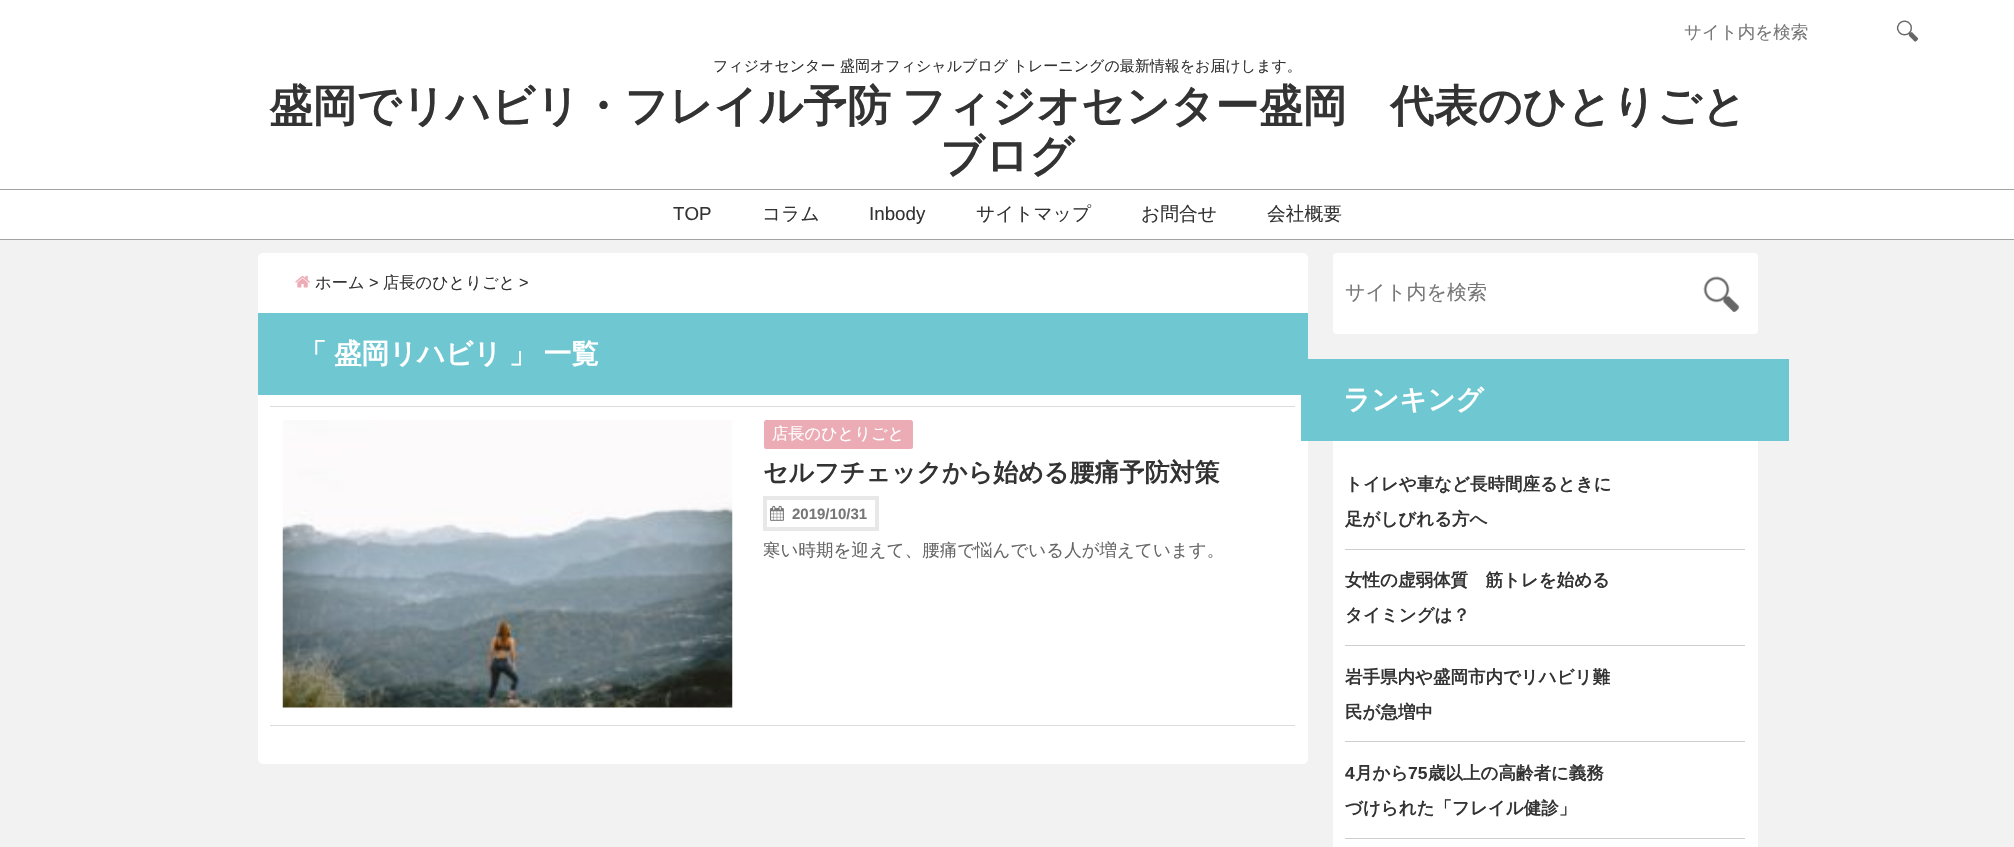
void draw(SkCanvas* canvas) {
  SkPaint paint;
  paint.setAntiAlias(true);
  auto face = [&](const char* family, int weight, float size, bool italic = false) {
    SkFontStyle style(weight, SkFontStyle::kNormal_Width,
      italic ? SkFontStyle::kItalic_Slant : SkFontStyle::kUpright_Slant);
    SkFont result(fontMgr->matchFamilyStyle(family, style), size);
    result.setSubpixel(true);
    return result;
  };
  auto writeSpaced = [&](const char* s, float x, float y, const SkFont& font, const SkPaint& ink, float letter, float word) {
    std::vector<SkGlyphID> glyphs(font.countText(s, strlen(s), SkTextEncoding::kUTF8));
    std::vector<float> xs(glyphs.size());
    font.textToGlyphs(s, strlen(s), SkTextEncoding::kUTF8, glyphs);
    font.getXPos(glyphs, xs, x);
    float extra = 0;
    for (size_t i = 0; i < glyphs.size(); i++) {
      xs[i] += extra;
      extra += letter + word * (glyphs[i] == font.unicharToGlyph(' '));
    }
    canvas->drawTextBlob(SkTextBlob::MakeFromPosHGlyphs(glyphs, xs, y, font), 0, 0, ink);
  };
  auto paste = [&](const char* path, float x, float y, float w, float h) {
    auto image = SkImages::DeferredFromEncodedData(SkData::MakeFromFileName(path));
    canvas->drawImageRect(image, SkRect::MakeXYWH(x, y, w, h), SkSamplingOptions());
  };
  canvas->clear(0xfff2f2f2);
  paint.setColor(0xffffffff);
  canvas->drawRect(SkRect::MakeXYWH(0, 0, 2014, 239), paint);
  paste("img/1.png", 1896, 20, 23, 22);
  paint.setColor(0xffa2a2a2);
  canvas->drawRect(SkRect::MakeXYWH(0, 189, 2014, 1), paint);
  canvas->drawRect(SkRect::MakeXYWH(0, 239, 2014, 1), paint);
  paint.setColor(0xffffffff);
  canvas->drawRoundRect(SkRect::MakeXYWH(258, 253, 1050, 511), 5, 5, paint);
  paste("img/2.png", 295, 275, 15, 13);
  {
    const struct { float x, y, w, h; SkColor color; } items[] = {
      {258, 313, 1050, 82, 0xff6ec7d1},
      {270, 406, 1025, 1, 0xffdcdcdc},
      {270, 725, 1025, 1, 0xffdcdcdc},
    };
    for (auto [x, y, w, h, color] : items) {
      paint.setColor(color);
      canvas->drawRect(SkRect::MakeXYWH(x, y, w, h), paint);
    }
  }
  paste("img/3.png", 282, 420, 451, 288);
  paint.setColor(0xffecacb5);
  canvas->drawRoundRect(SkRect::MakeXYWH(764, 420, 149, 29), 2.5f, 2.5f, paint);
  paint.setStroke(true);
  paint.setStrokeWidth(4);
  paint.setColor(0xffe8e8e8);
  canvas->drawRect(SkRect::MakeXYWH(765, 498, 112, 31), paint);
  paste("img/4.png", 770, 505, 14, 16);
  paint.setStroke(false);
  paint.setColor(0xffffffff);
  canvas->drawRoundRect(SkRect::MakeXYWH(1333, 253, 425, 81), 4, 4, paint);
  paste("img/5.png", 1703, 276, 37, 36);
  {
    const struct { float x, y, w, h; SkColor color; } items[] = {
      {1333, 441, 425, 406, 0xffffffff},
      {1301, 359, 488, 82, 0xff6ec7d1},
      {1345, 549, 400, 1, 0xffcecece},
      {1345, 645, 400, 1, 0xffcecece},
      {1345, 741, 400, 1, 0xffcecece},
      {1345, 838, 400, 1, 0xffcecece},
    };
    for (auto [x, y, w, h, color] : items) {
      paint.setColor(color);
      canvas->drawRect(SkRect::MakeXYWH(x, y, w, h), paint);
    }
  }
  auto f0 = face("WenQuanYi Zen Hei", 500, 17.5f);
  paint.setColor(0xff777777);
  canvas->drawString("サイト内を検索", 1684, 38, f0, paint);
  auto f1 = face("WenQuanYi Zen Hei", 500, 15);
  paint.setColor(0xff333333);
  canvas->drawString("フィジオセンター 盛岡オフィシャルブログ トレーニングの最新情報をお届けします。", 713, 71, f1, paint);
  auto f2 = face("WenQuanYi Zen Hei", 700, 43.75f);
  writeSpaced("盛岡でリハビリ・フレイル予防 フィジオセンター盛岡　代表のひとりごと", 269, 121, f2, paint, 0, -2);
  canvas->drawString("ブログ", 940, 171, f2, paint);
  auto f3 = face("Liberation Sans", 400, 18.75f);
  canvas->drawString("TOP", 673, 220, f3, paint);
  auto f4 = face("WenQuanYi Zen Hei", 500, 18.75f);
  canvas->drawString("コラム", 762, 220, f4, paint);
  canvas->drawString("Inbody", 869, 220, f3, paint);
  {
    const struct { const char* s; float x, y; } items[] = {
      {"サイトマップ", 976, 220},
      {"お問合せ", 1141, 220},
      {"会社概要", 1267, 220},
    };
    for (auto [s, x, y] : items) {
      canvas->drawString(s, x, y, f4, paint);
    }
  }
  auto f5 = face("WenQuanYi Zen Hei", 500, 16.25f);
  canvas->drawString("ホーム", 315, 288, f5, paint);
  auto f6 = face("Liberation Sans", 400, 16.25f);
  canvas->drawString(">", 369, 288, f6, paint);
  canvas->drawString("店長のひとりごと", 383, 288, f5, paint);
  canvas->drawString(">", 519, 288, f6, paint);
  auto f7 = face("WenQuanYi Zen Hei", 700, 27.5f);
  paint.setColor(0xffffffff);
  canvas->drawString("「", 299, 363, f7, paint);
  canvas->drawString("盛岡リハビリ", 334, 363, f7, paint);
  writeSpaced("」 一覧", 509, 363, f7, paint, 0, -1);
  canvas->drawString("店長のひとりごと", 772, 439, f5, paint);
  auto f8 = face("WenQuanYi Zen Hei", 700, 25);
  paint.setColor(0xff333333);
  canvas->drawString("セルフチェックから始める腰痛予防対策", 763, 481, f8, paint);
  auto f9 = face("Liberation Sans", 700, 15);
  paint.setColor(0xff777777);
  canvas->drawString("2019/10/31", 792, 519, f9, paint);
  paint.setColor(0xff666666);
  canvas->drawString("寒い時期を迎えて、腰痛で悩んでいる人が増えています。", 763, 556, f0, paint);
  auto f10 = face("WenQuanYi Zen Hei", 500, 20);
  paint.setColor(0xff777777);
  canvas->drawString("サイト内を検索", 1345, 299, f10, paint);
  paint.setColor(0xffffffff);
  canvas->drawString("ランキング", 1343, 409, f7, paint);
  auto f11 = face("WenQuanYi Zen Hei", 700, 17.5f);
  paint.setColor(0xff333333);
  {
    const struct { const char* s; float x, y; } items[] = {
      {"トイレや車など長時間座るときに", 1345, 490},
      {"足がしびれる方へ", 1345, 525},
      {"女性の虚弱体質　筋トレを始める", 1345, 586},
      {"タイミングは？", 1345, 621},
      {"岩手県内や盛岡市内でリハビリ難", 1345, 683},
      {"民が急増中", 1345, 718},
    };
    for (auto [s, x, y] : items) {
      canvas->drawString(s, x, y, f11, paint);
    }
  }
  auto f12 = face("Liberation Sans", 700, 17.5f);
  canvas->drawString("4", 1345, 779, f12, paint);
  canvas->drawString("月から", 1355, 779, f11, paint);
  canvas->drawString("75", 1408, 779, f12, paint);
  canvas->drawString("歳以上の高齢者に義務", 1428, 779, f11, paint);
  canvas->drawString("づけられた「フレイル健診」", 1345, 814, f11, paint);
}
